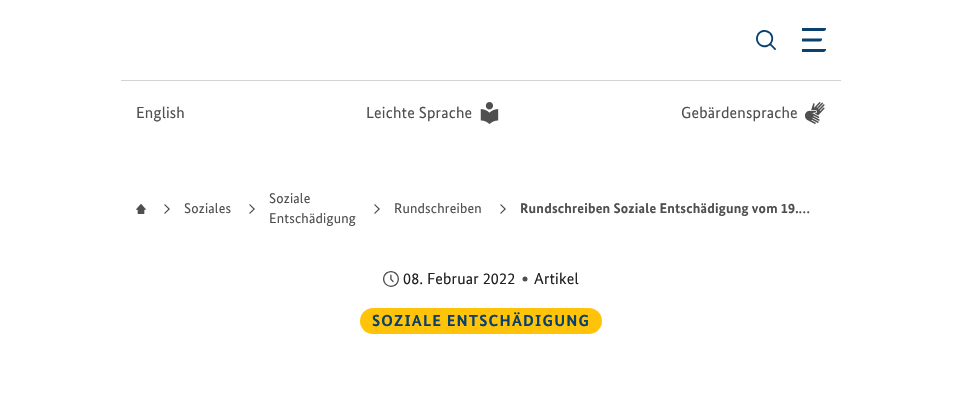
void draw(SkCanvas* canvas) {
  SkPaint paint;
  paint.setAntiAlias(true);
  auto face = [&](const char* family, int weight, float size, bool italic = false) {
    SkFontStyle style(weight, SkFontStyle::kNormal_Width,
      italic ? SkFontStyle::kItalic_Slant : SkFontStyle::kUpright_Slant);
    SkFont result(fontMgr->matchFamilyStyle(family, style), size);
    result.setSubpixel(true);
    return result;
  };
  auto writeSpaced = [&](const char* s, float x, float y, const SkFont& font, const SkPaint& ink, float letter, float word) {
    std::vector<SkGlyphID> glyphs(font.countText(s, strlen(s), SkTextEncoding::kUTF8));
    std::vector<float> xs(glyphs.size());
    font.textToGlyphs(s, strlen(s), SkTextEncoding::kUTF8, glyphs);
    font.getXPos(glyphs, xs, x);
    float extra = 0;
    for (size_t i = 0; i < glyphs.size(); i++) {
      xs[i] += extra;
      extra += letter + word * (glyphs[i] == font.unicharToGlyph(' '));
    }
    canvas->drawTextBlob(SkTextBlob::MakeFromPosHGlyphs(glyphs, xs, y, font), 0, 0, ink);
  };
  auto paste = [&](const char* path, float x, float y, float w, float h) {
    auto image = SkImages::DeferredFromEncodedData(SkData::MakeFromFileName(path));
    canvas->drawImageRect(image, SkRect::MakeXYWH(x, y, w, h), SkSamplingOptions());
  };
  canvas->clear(0xffffffff);
  paint.setColor(0xffd3d3d3);
  canvas->drawRect(SkRect::MakeXYWH(121, 80, 720, 1), paint);
  paste("img/1.png", 756, 30, 20, 20);
  paste("img/2.png", 802, 28, 24, 24);
  paste("img/3.png", 480, 102, 19, 22);
  paste("img/4.png", 804, 102, 21, 22);
  paste("img/5.png", 136, 204, 10, 10);
  paste("img/6.png", 164, 204, 6, 10);
  paste("img/6.png", 249, 204, 6, 10);
  paste("img/6.png", 374, 204, 6, 10);
  paste("img/6.png", 500, 204, 6, 10);
  paste("img/7.png", 383, 271, 16, 16);
  paste("img/8.png", 522, 276, 6, 6);
  paint.setColor(0xffffc409);
  canvas->drawRoundRect(SkRect::MakeXYWH(360, 308, 242, 26), 13, 13, paint);
  auto f0 = face("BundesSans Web", 400, 16);
  paint.setColor(0xff4f4f4f);
  {
    const struct { const char* s; float x, y; } items[] = {
      {"English", 136, 118},
      {"Leichte Sprache", 366, 118},
      {"Gebärdensprache", 681, 118},
    };
    for (auto [s, x, y] : items) {
      writeSpaced(s, x, y, f0, paint, 0.2f, 0);
    }
  }
  auto f1 = face("BundesSans Web", 400, 14);
  {
    const struct { const char* s; float x, y; } items[] = {
      {"Soziales", 184, 213},
      {"Soziale", 269, 203},
      {"Entschädigung", 269, 223},
      {"Rundschreiben", 394, 213},
    };
    for (auto [s, x, y] : items) {
      writeSpaced(s, x, y, f1, paint, 0.2f, 0);
    }
  }
  auto f2 = face("BundesSans Web", 700, 14);
  writeSpaced("Rundschreiben Soziale Entschädigung vom 19.…", 520, 213, f2, paint, 0.2f, 0);
  paint.setColor(0xff222222);
  writeSpaced("08. Februar 2022", 403, 284, f0, paint, 0.2f, 0);
  writeSpaced("Artikel", 534, 284, f0, paint, 0.2f, 0);
  auto f3 = face("BundesSans Web", 700, 16);
  paint.setColor(0xff0a406e);
  writeSpaced("SOZIALE ENTSCHÄDIGUNG", 372, 326, f3, paint, 1.2f, 0);
}
